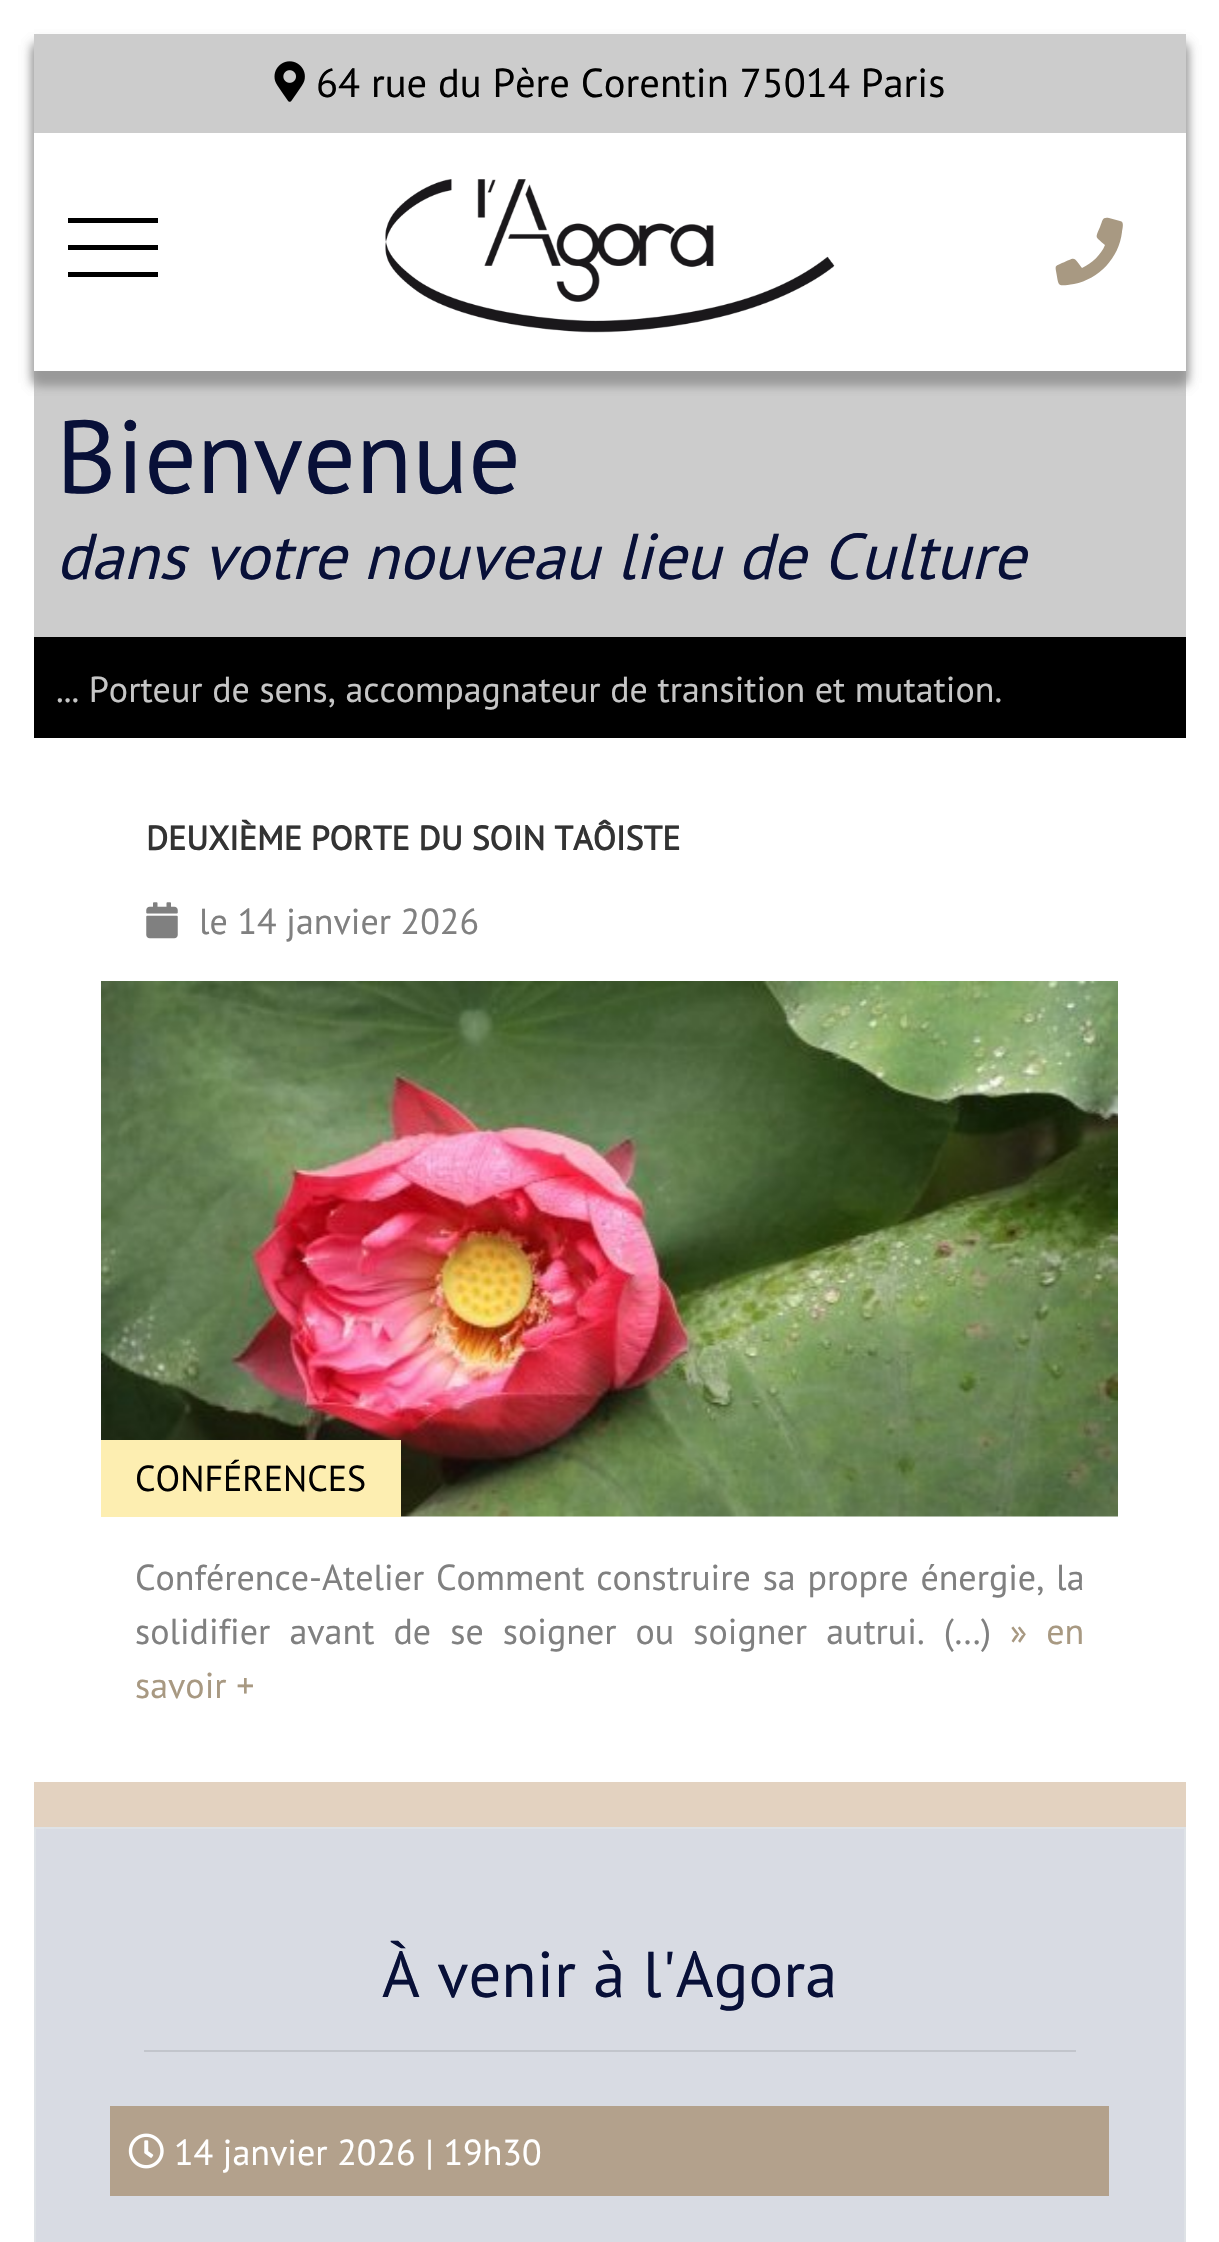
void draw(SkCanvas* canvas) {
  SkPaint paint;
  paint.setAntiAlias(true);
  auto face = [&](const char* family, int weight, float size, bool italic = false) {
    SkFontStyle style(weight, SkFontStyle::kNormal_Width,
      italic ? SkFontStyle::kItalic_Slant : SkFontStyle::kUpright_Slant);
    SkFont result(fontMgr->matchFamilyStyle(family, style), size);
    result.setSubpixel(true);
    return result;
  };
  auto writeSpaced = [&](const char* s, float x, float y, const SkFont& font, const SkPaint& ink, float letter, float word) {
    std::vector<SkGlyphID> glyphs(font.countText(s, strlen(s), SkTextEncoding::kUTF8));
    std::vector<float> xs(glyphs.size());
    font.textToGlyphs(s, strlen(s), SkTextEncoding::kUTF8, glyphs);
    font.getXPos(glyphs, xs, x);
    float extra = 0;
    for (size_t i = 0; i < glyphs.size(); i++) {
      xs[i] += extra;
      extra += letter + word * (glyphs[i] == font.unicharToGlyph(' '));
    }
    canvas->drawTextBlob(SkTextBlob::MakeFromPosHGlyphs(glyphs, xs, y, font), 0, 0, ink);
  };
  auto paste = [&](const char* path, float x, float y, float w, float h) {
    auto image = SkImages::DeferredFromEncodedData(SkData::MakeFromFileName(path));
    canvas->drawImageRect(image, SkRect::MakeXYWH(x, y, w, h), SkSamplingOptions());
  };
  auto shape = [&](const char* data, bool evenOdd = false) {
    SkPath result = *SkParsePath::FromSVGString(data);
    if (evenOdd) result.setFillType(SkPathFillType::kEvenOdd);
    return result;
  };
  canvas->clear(0xffffffff);
  paint.setColor(0xffcccccc);
  canvas->drawRect(SkRect::MakeXYWH(34, 371, 1152, 266), paint);
  canvas->save();
  canvas->clipPath(shape("M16 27H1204V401H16ZM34 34H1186V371H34Z", true), true);
  paint.setColor(0xff999999);
  paint.setMaskFilter(SkMaskFilter::MakeBlur(kNormal_SkBlurStyle, 5.5f));
  canvas->drawRect(SkRect::MakeXYWH(34, 45, 1152, 338), paint);
  paint.setMaskFilter(nullptr);
  paint.setMaskFilter(SkMaskFilter::MakeBlur(kNormal_SkBlurStyle, 5.5f));
  canvas->drawRect(SkRect::MakeXYWH(34, 45, 1152, 338), paint);
  paint.setMaskFilter(nullptr);
  canvas->restore();
  paint.setColor(0xffcccccc);
  canvas->drawRect(SkRect::MakeXYWH(34, 34, 1152, 99), paint);
  paste("img/1.png", 274, 61, 31, 41);
  {
    const struct { float x, y, w, h; SkColor color; } items[] = {
      {68, 218, 90, 5, 0xff000000},
      {68, 245, 90, 5, 0xff000000},
      {68, 272, 90, 5, 0xff000000},
    };
    for (auto [x, y, w, h, color] : items) {
      paint.setColor(color);
      canvas->drawRect(SkRect::MakeXYWH(x, y, w, h), paint);
    }
  }
  paste("img/2.png", 385, 179, 450, 154);
  paint.setColor(0xffa89982);
  canvas->drawPath(shape("M1120 221L1109 218C1102 217 1103 220 1100 227C1095 239 1095 236 1105 245C1101 255 1092 263 1082 268C1073 256 1076 257 1062 263C1056 266 1055 265 1056 271C1059 286 1056 287 1074 284C1099 279 1119 258 1122 232C1122 230 1125 221 1120 221Z"), paint);
  paint.setColor(0xff000000);
  canvas->drawRect(SkRect::MakeXYWH(34, 637, 1152, 101), paint);
  paste("img/3.png", 146, 902, 32, 37);
  paste("img/4.png", 101, 981, 1017, 536);
  paint.setColor(0xfffdeeb1);
  canvas->drawRect(SkRect::MakeXYWH(101, 1440, 300, 77), paint);
  paint.setColor(0xffe3d2c0);
  canvas->drawRect(SkRect::MakeXYWH(34, 1782, 1152, 45), paint);
  paint.setColor(0xffd8dbe3);
  canvas->drawRect(SkRect::MakeXYWH(35, 1828, 1150, 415), paint);
  paint.setStroke(true);
  paint.setStrokeWidth(2);
  paint.setColor(0xffdee2e6);
  canvas->drawRect(SkRect::MakeXYWH(35, 1828, 1150, 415), paint);
  paint.setStroke(false);
  paint.setColor(0xffc2c5cc);
  canvas->drawRect(SkRect::MakeXYWH(144, 2050, 932, 2), paint);
  paint.setColor(0xffb3a18c);
  canvas->drawRect(SkRect::MakeXYWH(110, 2106, 999, 90), paint);
  paste("img/5.png", 128, 2133, 36, 36);
  auto f0 = face("PT Sans", 400, 40.5f);
  paint.setColor(0xff000000);
  canvas->drawString("64 rue du Père Corentin 75014 Paris", 316, 97, f0, paint);
  auto f1 = face("PT Sans", 400, 103.5f);
  paint.setColor(0xff081038);
  canvas->drawString("Bienvenue", 56, 493, f1, paint);
  auto f2 = face("PT Sans", 400, 64.75f, true);
  canvas->drawString("dans votre nouveau lieu de Culture", 56, 579, f2, paint);
  auto f3 = face("PT Sans", 400, 36);
  paint.setColor(0xffc6c6c6);
  canvas->drawString("... Porteur de sens, accompagnateur de transition et mutation.", 56, 702, f3, paint);
  auto f4 = face("PT Sans", 700, 33.75f);
  paint.setColor(0xff333333);
  canvas->drawString("DEUXIÈME PORTE DU SOIN TAÔISTE", 146, 850, f4, paint);
  paint.setColor(0xff808080);
  canvas->drawString("le 14 janvier 2026", 199, 934, f3, paint);
  paint.setColor(0xff000000);
  canvas->drawString("CONFÉRENCES", 135, 1491, f3, paint);
  paint.setColor(0xff808080);
  canvas->drawString("Conférence-Atelier", 135, 1590, f3, paint);
  writeSpaced("Comment construire sa propre énergie, la", 436, 1590, f3, paint, 0, 2.25f);
  writeSpaced("solidifier avant de se soigner ou soigner autrui. (…)", 135, 1644, f3, paint, 0, 9.5f);
  paint.setColor(0xffa89982);
  writeSpaced("» en", 1010, 1644, f3, paint, 0, 9.5f);
  canvas->drawString("savoir +", 135, 1698, f3, paint);
  auto f5 = face("PT Sans", 400, 64.75f);
  paint.setColor(0xff081038);
  canvas->drawString("À venir à l'Agora", 382, 1997, f5, paint);
  paint.setColor(0xffffffff);
  canvas->drawString("14 janvier 2026 | 19h30", 174, 2165, f3, paint);
}
